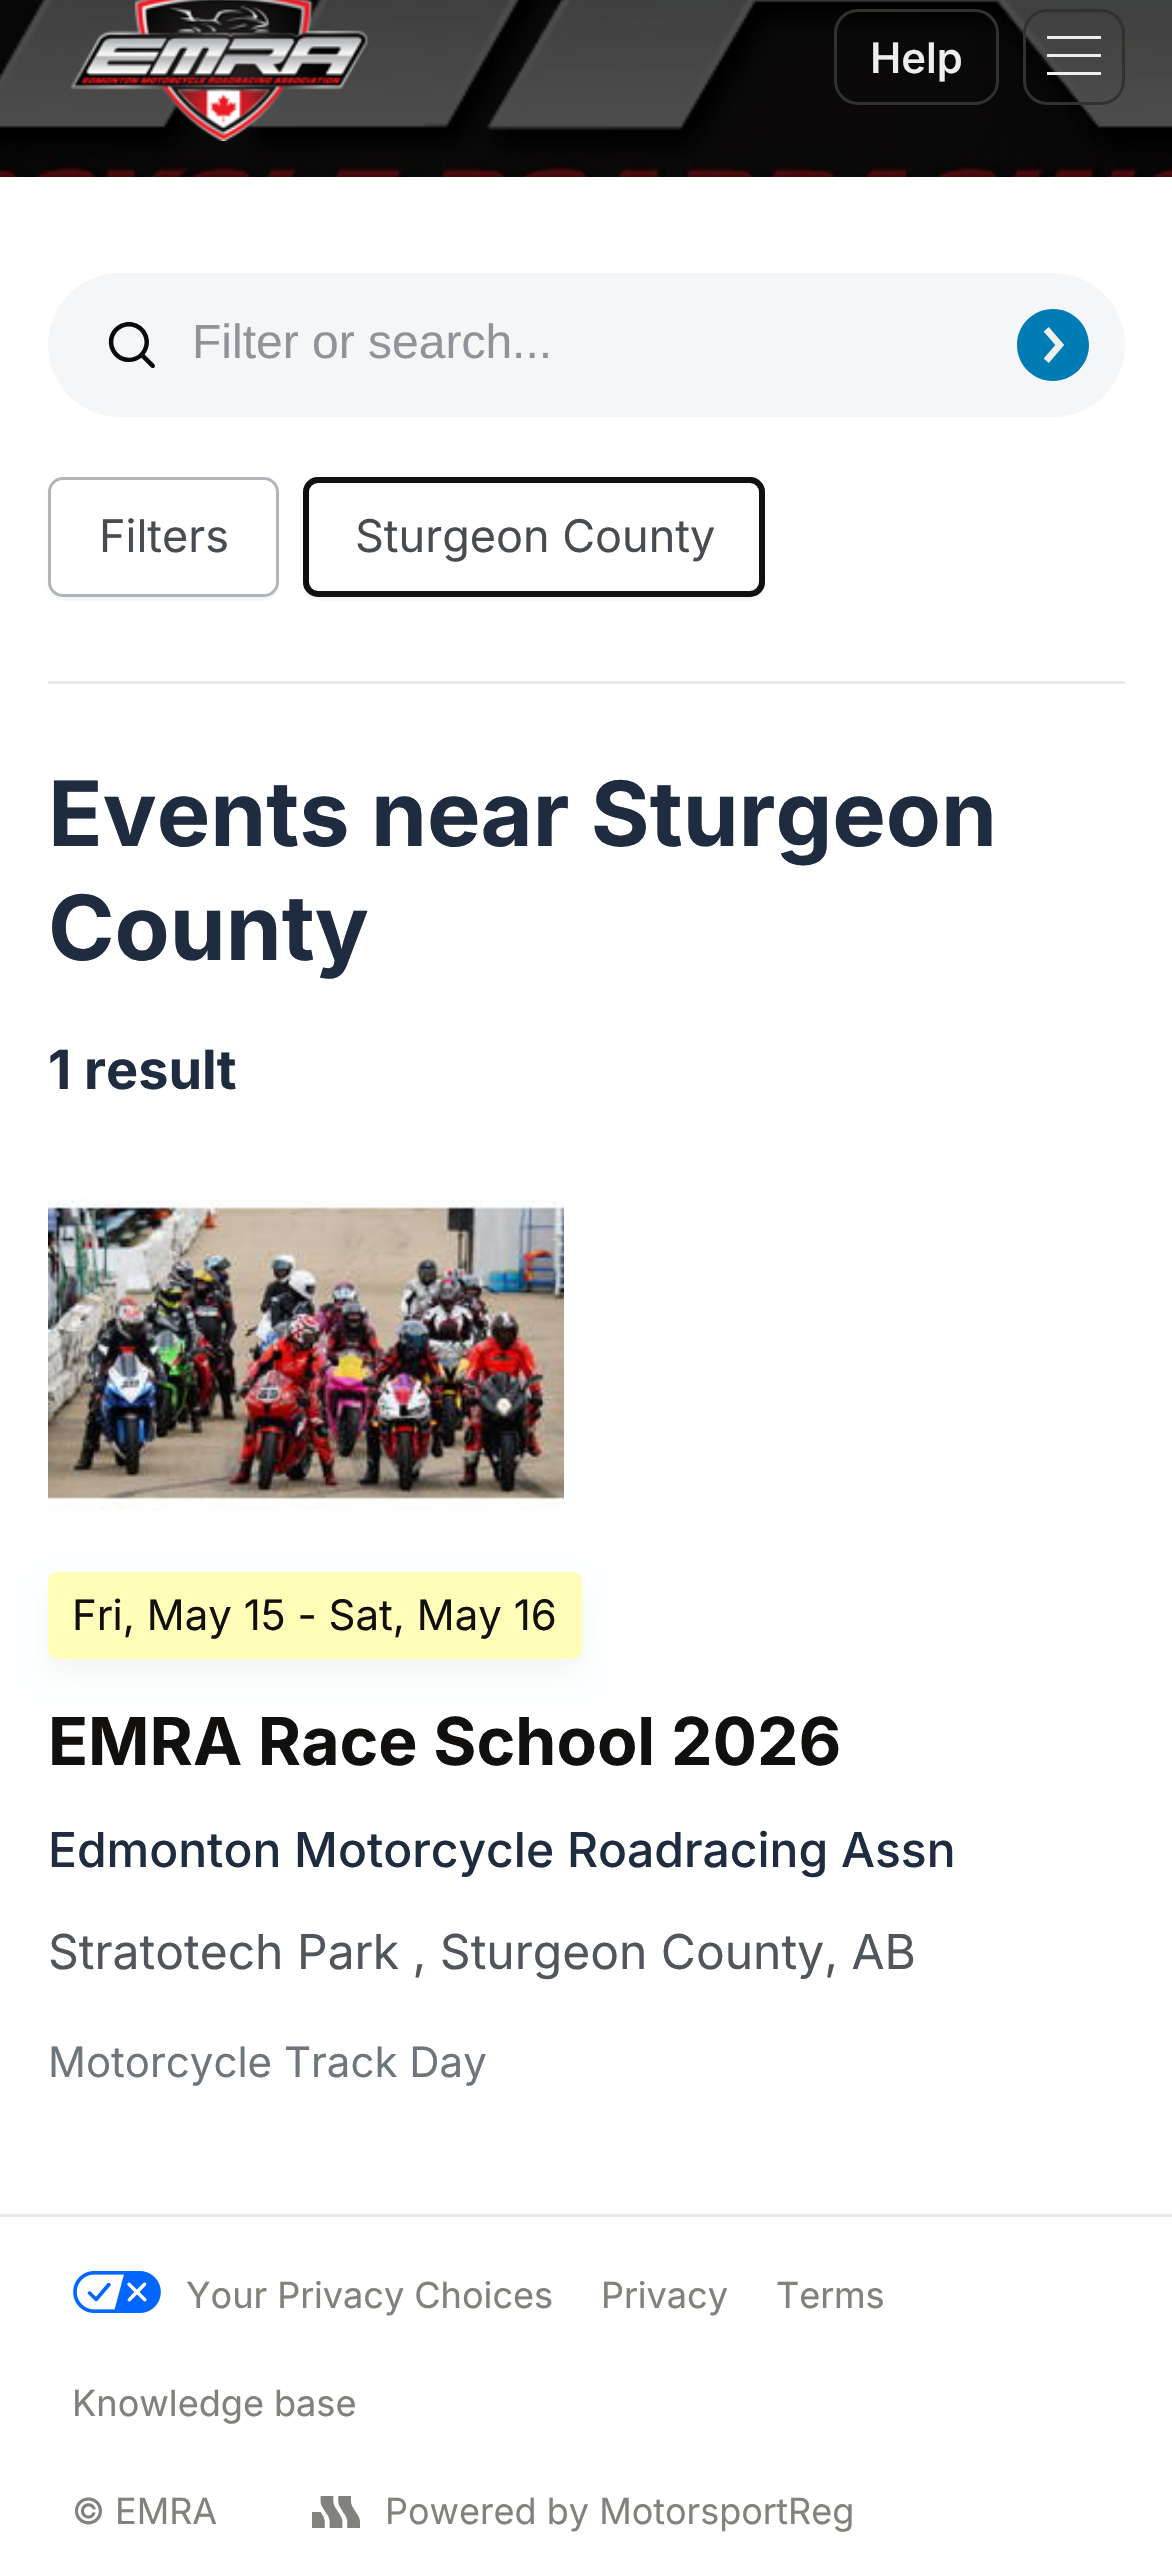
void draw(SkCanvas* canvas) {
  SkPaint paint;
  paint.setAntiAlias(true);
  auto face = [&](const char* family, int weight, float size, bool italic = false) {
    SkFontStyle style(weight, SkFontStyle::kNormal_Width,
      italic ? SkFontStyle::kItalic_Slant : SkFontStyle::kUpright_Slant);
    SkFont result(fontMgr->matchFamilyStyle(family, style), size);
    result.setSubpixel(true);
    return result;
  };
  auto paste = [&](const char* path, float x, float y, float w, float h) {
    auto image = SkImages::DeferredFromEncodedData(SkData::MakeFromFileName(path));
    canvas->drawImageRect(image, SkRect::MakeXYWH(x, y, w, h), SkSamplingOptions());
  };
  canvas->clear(0xffffffff);
  paste("img/1.png", 0, 0, 1172, 177);
  paste("img/2.png", 70, 0, 299, 141);
  paint.setStroke(true);
  paint.setStrokeWidth(3);
  paint.setColor(0xff31312e);
  canvas->drawRoundRect(SkRect::MakeXYWH(835.5f, 10.5f, 162, 93), 22.5f, 22.5f, paint);
  canvas->drawRoundRect(SkRect::MakeXYWH(1024.5f, 10.5f, 99, 93), 22.5f, 22.5f, paint);
  paint.setStroke(false);
  {
    const struct { float x, y, w, h; SkColor color; } items[] = {
      {1047, 54, 54, 3, 0xffeeeeec},
      {1047, 36, 54, 3, 0xffeeeeec},
      {1047, 72, 54, 3, 0xffeeeeec},
      {48, 681, 1077, 3, 0xffe6e7e7},
    };
    for (auto [x, y, w, h, color] : items) {
      paint.setColor(color);
      canvas->drawRect(SkRect::MakeXYWH(x, y, w, h), paint);
    }
  }
  paint.setColor(0xfff4f6f8);
  canvas->drawRoundRect(SkRect::MakeXYWH(48, 273, 1077, 144), 72, 72, paint);
  paste("img/3.png", 108, 322, 47, 46);
  paint.setColor(0xffefefef);
  canvas->drawCircle(1053, 345, 36, paint);
  paste("img/4.png", 1017, 309, 72, 72);
  paint.setColor(0x0d090a0b);
  paint.setMaskFilter(SkMaskFilter::MakeBlur(kNormal_SkBlurStyle, 1.5f));
  canvas->drawRoundRect(SkRect::MakeXYWH(48, 480, 231, 120), 15, 15, paint);
  paint.setMaskFilter(nullptr);
  paint.setColor(0xffffffff);
  canvas->drawRoundRect(SkRect::MakeXYWH(49.5f, 478.5f, 228, 117), 13.5f, 13.5f, paint);
  paint.setStroke(true);
  paint.setColor(0xffb1b5b9);
  canvas->drawRoundRect(SkRect::MakeXYWH(49.5f, 478.5f, 228, 117), 13.5f, 13.5f, paint);
  paint.setStroke(false);
  paint.setColor(0x0d090a0b);
  paint.setMaskFilter(SkMaskFilter::MakeBlur(kNormal_SkBlurStyle, 1.5f));
  canvas->drawRoundRect(SkRect::MakeXYWH(303, 480, 462, 120), 15, 15, paint);
  paint.setMaskFilter(nullptr);
  paint.setColor(0xffffffff);
  canvas->drawRoundRect(SkRect::MakeXYWH(304.5f, 478.5f, 459, 117), 13.5f, 13.5f, paint);
  paint.setStroke(true);
  paint.setColor(0xffb1b5b9);
  canvas->drawRoundRect(SkRect::MakeXYWH(304.5f, 478.5f, 459, 117), 13.5f, 13.5f, paint);
  paint.setStrokeWidth(6);
  paint.setColor(0xff11100e);
  canvas->drawRoundRect(SkRect::MakeXYWH(306, 480, 456, 114), 12, 12, paint);
  paste("img/5.png", 48, 1199, 516, 312);
  paint.setStroke(false);
  paint.setColor(0x0d090a0b);
  paint.setMaskFilter(SkMaskFilter::MakeBlur(kNormal_SkBlurStyle, 15));
  canvas->drawRoundRect(SkRect::MakeXYWH(48, 1587, 534, 87), 9, 9, paint);
  paint.setMaskFilter(nullptr);
  paint.setColor(0xfffffdb8);
  canvas->drawRoundRect(SkRect::MakeXYWH(48, 1572, 534, 87), 9, 9, paint);
  paint.setColor(0xffe9e8e6);
  canvas->drawRect(SkRect::MakeXYWH(0, 2214, 1172, 3), paint);
  paste("img/6.png", 73, 2271, 88, 42);
  paste("img/7.png", 312, 2496, 48, 32);
  auto f0 = face("Inter", 500, 42);
  paint.setColor(0xffeeeeec);
  canvas->drawString("Help", 870, 73, f0, paint);
  auto f1 = face("Liberation Sans", 400, 48);
  paint.setColor(0xff8e949a);
  canvas->drawString("Filter or search...", 192, 358, f1, paint);
  auto f2 = face("Inter", 400, 45);
  paint.setColor(0xff484c51);
  canvas->drawString("Filters", 99, 552, f2, paint);
  canvas->drawString("Sturgeon County", 355, 552, f2, paint);
  auto f3 = face("Inter", 700, 90);
  paint.setColor(0xff1f2b3f);
  canvas->drawString("Events near Sturgeon", 48, 846, f3, paint);
  canvas->drawString("County", 48, 960, f3, paint);
  auto f4 = face("Inter", 700, 54);
  canvas->drawString("1 result", 48, 1089, f4, paint);
  auto f5 = face("Inter", 400, 42);
  paint.setColor(0xff11100e);
  canvas->drawString("Fri, May 15 - Sat, May 16", 72, 1630, f5, paint);
  auto f6 = face("Inter", 700, 66);
  canvas->drawString("EMRA Race School 2026", 48, 1765, f6, paint);
  auto f7 = face("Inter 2", 500, 48);
  paint.setColor(0xff1f2b3f);
  canvas->drawString("Edmonton Motorcycle Roadracing Assn", 48, 1867, f7, paint);
  auto f8 = face("Inter", 400, 48);
  paint.setColor(0xff51565c);
  canvas->drawString("Stratotech Park , Sturgeon County, AB", 48, 1969, f8, paint);
  paint.setColor(0xff6f757c);
  canvas->drawString("Motorcycle Track Day", 48, 2077, f5, paint);
  auto f9 = face("Inter 2", 400, 36);
  paint.setColor(0xff82827c);
  {
    const struct { const char* s; float x, y; } items[] = {
      {"Your Privacy Choices", 186, 2308},
      {"Privacy", 601, 2308},
      {"Terms", 776, 2308},
      {"Knowledge base", 72, 2416},
    };
    for (auto [s, x, y] : items) {
      canvas->drawString(s, x, y, f9, paint);
    }
  }
  auto f10 = face("Inter", 400, 36);
  canvas->drawString("© EMRA", 72, 2524, f10, paint);
  canvas->drawString("Powered by MotorsportReg", 385, 2524, f10, paint);
}
